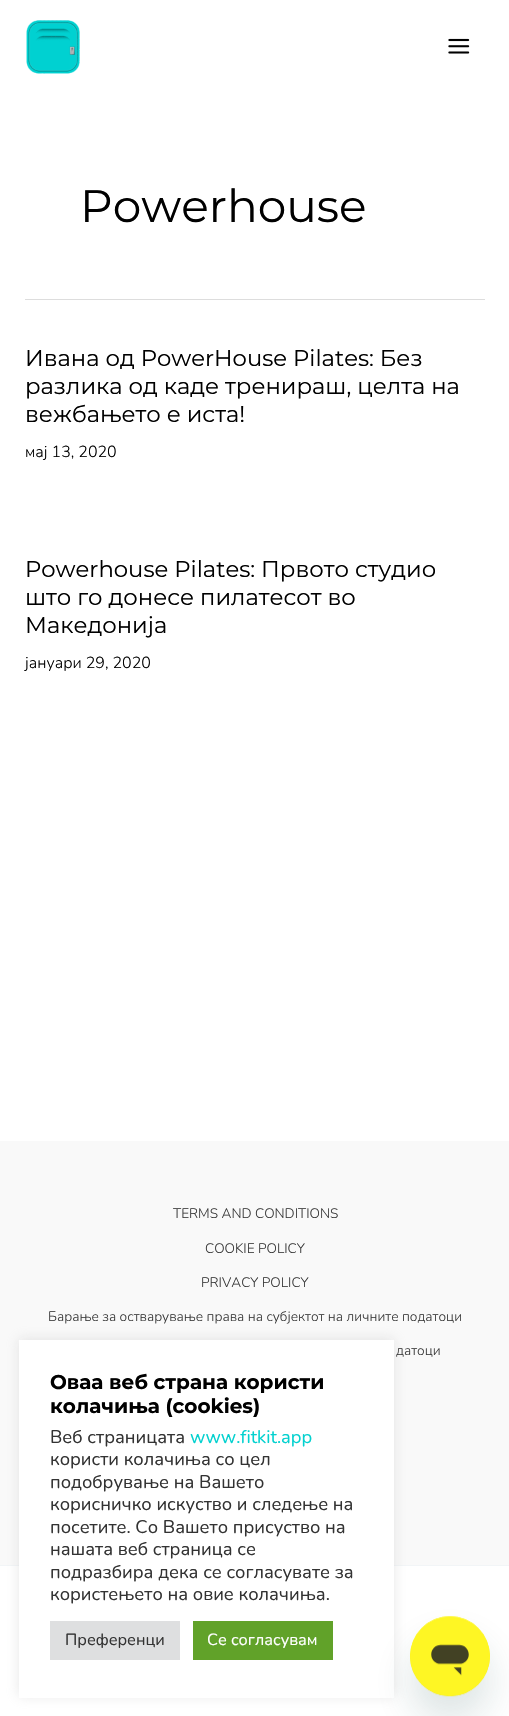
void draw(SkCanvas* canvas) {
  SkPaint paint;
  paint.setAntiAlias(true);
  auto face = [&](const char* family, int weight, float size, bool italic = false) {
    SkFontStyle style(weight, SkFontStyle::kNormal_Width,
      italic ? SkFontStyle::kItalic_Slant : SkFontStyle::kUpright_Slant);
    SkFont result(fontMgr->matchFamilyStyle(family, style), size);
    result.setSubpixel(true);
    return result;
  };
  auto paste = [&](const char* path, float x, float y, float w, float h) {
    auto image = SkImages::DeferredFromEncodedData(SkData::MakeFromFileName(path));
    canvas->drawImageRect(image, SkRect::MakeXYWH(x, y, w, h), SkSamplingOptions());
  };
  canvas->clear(0xffffffff);
  paste("img/1.png", 26, 20, 54, 54);
  paste("img/2.png", 448, 38, 22, 16);
  {
    const struct { float x, y, w, h; SkColor color; } items[] = {
      {25, 299, 460, 1, 0xffdddddd},
      {0, 1141, 509, 424, 0xfff9f9f9},
      {0, 1565, 509, 1, 0xfff2f5f7},
    };
    for (auto [x, y, w, h, color] : items) {
      paint.setColor(color);
      canvas->drawRect(SkRect::MakeXYWH(x, y, w, h), paint);
    }
  }
  paint.setColor(0x4dacabab);
  paint.setMaskFilter(SkMaskFilter::MakeBlur(kNormal_SkBlurStyle, 6));
  canvas->drawRect(SkRect::MakeXYWH(19, 1339, 375, 357), paint);
  paint.setMaskFilter(nullptr);
  {
    const struct { float x, y, w, h; SkColor color; } items[] = {
      {19, 1340, 375, 358, 0xffffffff},
      {50, 1621, 130, 39, 0xffdedfe0},
      {193, 1621, 140, 39, 0xff61a229},
    };
    for (auto [x, y, w, h, color] : items) {
      paint.setColor(color);
      canvas->drawRect(SkRect::MakeXYWH(x, y, w, h), paint);
    }
  }
  paint.setColor(0x2617494d);
  paint.setMaskFilter(SkMaskFilter::MakeBlur(kNormal_SkBlurStyle, 19));
  canvas->drawRoundRect(SkRect::MakeXYWH(410, 1641, 80, 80), 40, 40, paint);
  paint.setMaskFilter(nullptr);
  paste("img/3.png", 410, 1616, 80, 81);
  auto f0 = face("Montserrat", 400, 45.5f);
  paint.setColor(0xff000000);
  canvas->drawString("Powerhouse", 80, 222, f0, paint);
  auto f1 = face("Montserrat", 400, 22.75f);
  {
    const struct { const char* s; float x, y; } items[] = {
      {"Ивана од PowerHouse Pilates: Без", 25, 366},
      {"разлика од каде тренираш, целта на", 25, 394},
      {"вежбањето е иста!", 25, 422},
    };
    for (auto [s, x, y] : items) {
      canvas->drawString(s, x, y, f1, paint);
    }
  }
  auto f2 = face("Nunito", 300, 16);
  canvas->drawString("мај 13, 2020", 25, 457, f2, paint);
  {
    const struct { const char* s; float x, y; } items[] = {
      {"Powerhouse Pilates: Првото студио", 25, 577},
      {"што го донесе пилатесот во", 25, 605},
      {"Македонија", 25, 633},
    };
    for (auto [s, x, y] : items) {
      canvas->drawString(s, x, y, f1, paint);
    }
  }
  canvas->drawString("јануари 29, 2020", 25, 668, f2, paint);
  auto f3 = face("Nunito", 300, 13.7f);
  paint.setColor(0xff3a3a3a);
  {
    const struct { const char* s; float x, y; } items[] = {
      {"TERMS AND CONDITIONS", 173, 1218},
      {"COOKIE POLICY", 205, 1253},
      {"PRIVACY POLICY", 201, 1287},
      {"Барање за остварување права на субјектот на личните податоци", 48, 1321},
      {"датоци", 396, 1355},
    };
    for (auto [s, x, y] : items) {
      canvas->drawString(s, x, y, f3, paint);
    }
  }
  auto f4 = face("Montserrat", 700, 20);
  paint.setColor(0xff000000);
  canvas->drawString("Оваа веб страна користи", 50, 1389, f4, paint);
  canvas->drawString("колачиња (cookies)", 50, 1413, f4, paint);
  auto f5 = face("Nunito", 400, 18.3f);
  paint.setColor(0xff333333);
  canvas->drawString("Веб страницата", 50, 1443, f5, paint);
  paint.setColor(0xff03d1cf);
  canvas->drawString("www.fitkit.app", 190, 1443, f5, paint);
  paint.setColor(0xff333333);
  {
    const struct { const char* s; float x, y; } items[] = {
      {"користи колачиња со цел", 50, 1465},
      {"подобрување на Вашето", 50, 1488},
      {"корисничко искуство и следење на", 50, 1510},
      {"посетите. Со Вашето присуство на", 50, 1533},
      {"нашата веб страница се", 50, 1555},
      {"подразбира дека се согласувате за", 50, 1578},
      {"користењето на овие колачиња.", 50, 1600},
    };
    for (auto [s, x, y] : items) {
      canvas->drawString(s, x, y, f5, paint);
    }
  }
  auto f6 = face("Nunito", 400, 16.25f);
  canvas->drawString("Преференци", 65, 1645, f6, paint);
  paint.setColor(0xffffffff);
  canvas->drawString("Се согласувам", 207, 1645, f6, paint);
}
